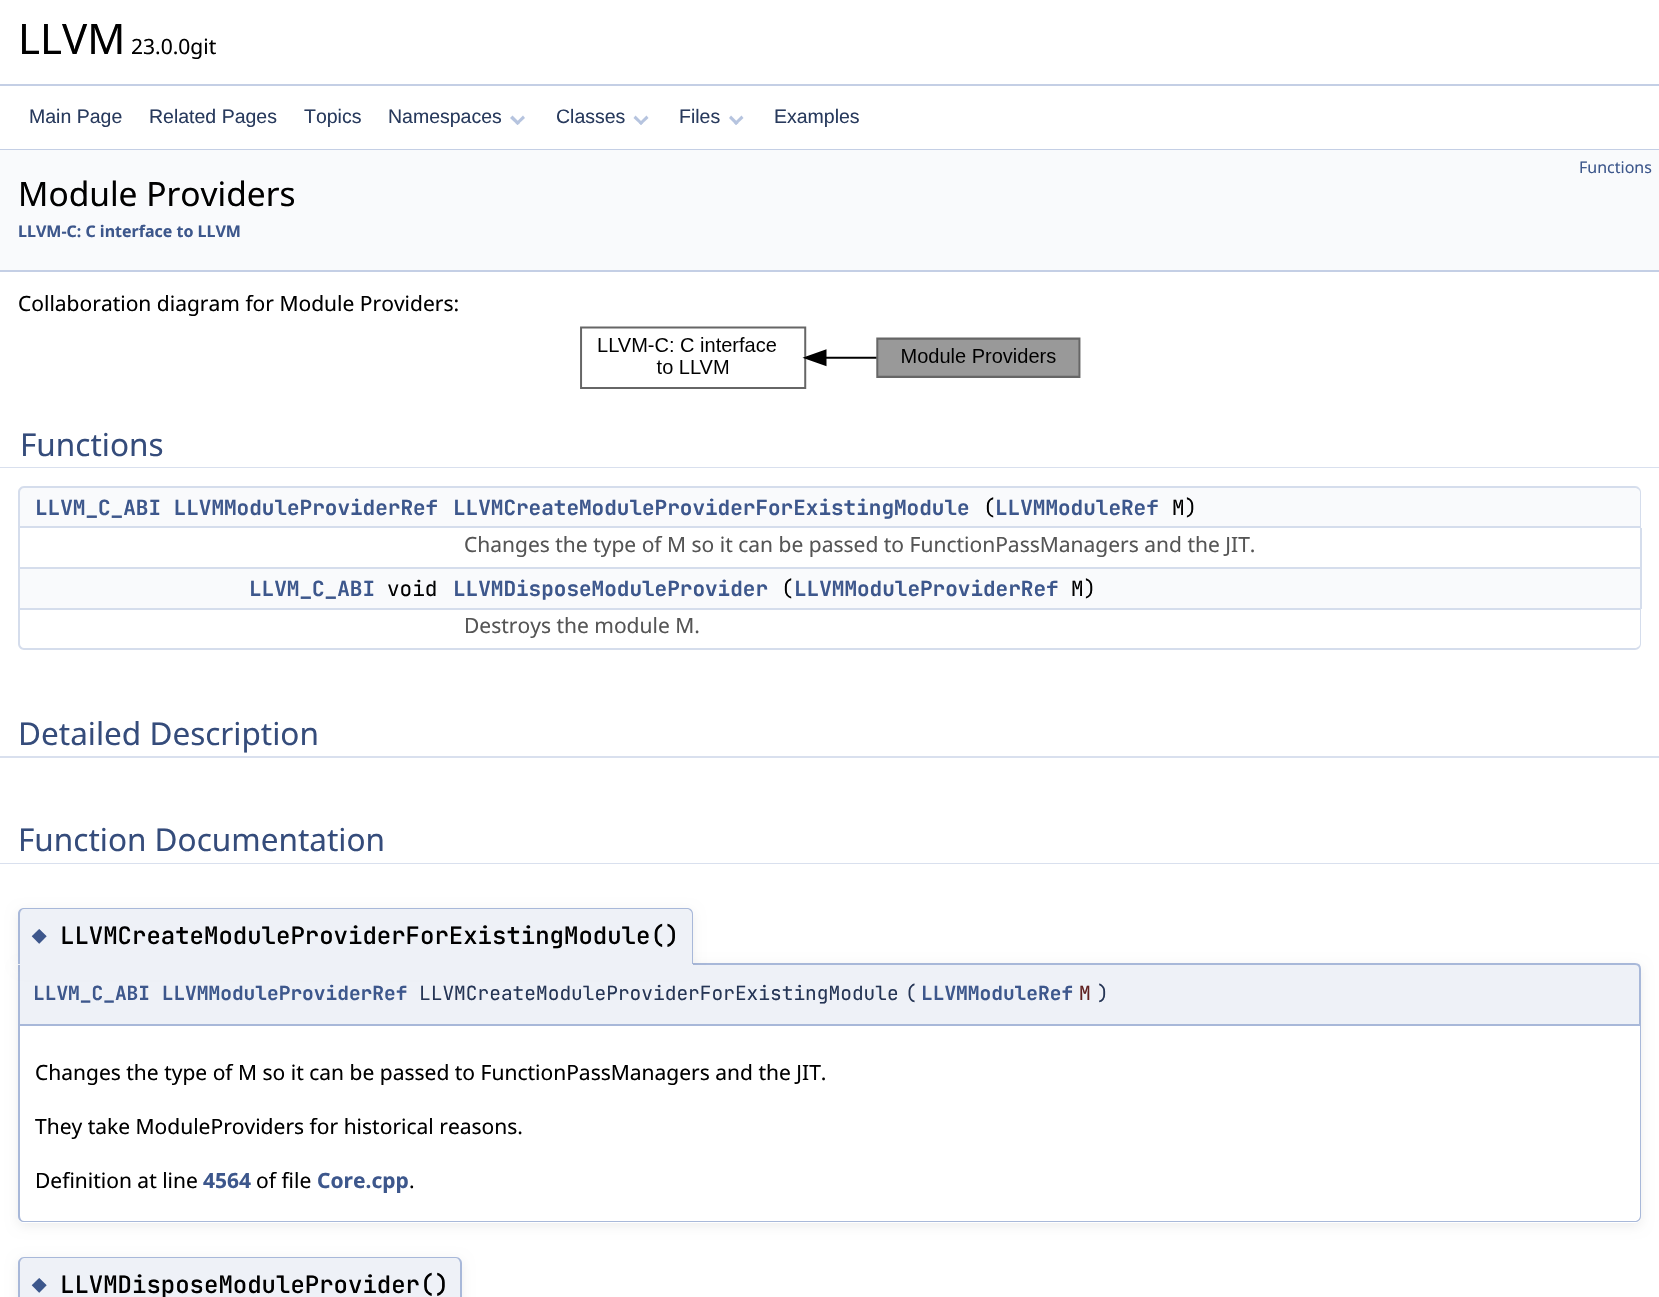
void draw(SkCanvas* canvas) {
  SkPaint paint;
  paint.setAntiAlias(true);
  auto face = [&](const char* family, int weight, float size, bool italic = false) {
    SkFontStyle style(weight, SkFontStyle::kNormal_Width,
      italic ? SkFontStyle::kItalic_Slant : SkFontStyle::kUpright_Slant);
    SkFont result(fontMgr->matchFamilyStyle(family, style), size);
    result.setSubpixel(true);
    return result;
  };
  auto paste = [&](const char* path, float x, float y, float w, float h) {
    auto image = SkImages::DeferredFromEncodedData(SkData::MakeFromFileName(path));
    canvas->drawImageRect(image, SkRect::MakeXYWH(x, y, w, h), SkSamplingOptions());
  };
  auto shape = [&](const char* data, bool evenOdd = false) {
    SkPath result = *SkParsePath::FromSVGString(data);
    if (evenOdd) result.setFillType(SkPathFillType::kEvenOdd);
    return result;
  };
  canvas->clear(0xffffffff);
  paint.setColor(0xffc4cfe5);
  canvas->drawRect(SkRect::MakeXYWH(0, 84, 1659, 2), paint);
  canvas->drawRect(SkRect::MakeXYWH(0, 149, 1659, 1), paint);
  paint.setColor(0xffb6c4df);
  canvas->drawPath(shape("M523 115.5L525 118L517.5 125L515.5 123Z"), paint);
  canvas->drawPath(shape("M512.5 115.5L520 123L517.5 125L510 118Z"), paint);
  canvas->drawPath(shape("M646.5 115.5L648.5 118L641 125L639 123Z"), paint);
  canvas->drawPath(shape("M635.5 115.5L643 123L641 125L633.5 118Z"), paint);
  canvas->drawPath(shape("M741.5 115.5L743.5 118L736 125L734 123Z"), paint);
  canvas->drawPath(shape("M731 115.5L738.5 123L736 125L729 118Z"), paint);
  paint.setColor(0xfff9fafc);
  canvas->drawRect(SkRect::MakeXYWH(0, 150, 1659, 120), paint);
  paint.setColor(0xffc4cfe5);
  canvas->drawRect(SkRect::MakeXYWH(0, 270, 1659, 2), paint);
  paste("img/1.png", 580, 326, 501, 63);
  paint.setColor(0xffd9e0ee);
  canvas->drawPath(shape("M0 417V468H1620V466H20V417Z"), paint);
  canvas->drawPath(shape("M39 466V468H1659V417H1640V466Z"), paint);
  paint.setColor(0xffffffff);
  canvas->drawPath(shape("M0 416V467H1620V466H20V416Z"), paint);
  canvas->drawPath(shape("M39 466V467H1659V416H1640V466Z"), paint);
  paint.setColor(0xfff9fafc);
  canvas->drawPath(shape("M24 486H452V528H18V492C18 488.5 20.5 486 24 486Z"), paint);
  paint.setColor(0xffd5ddec);
  canvas->drawPath(shape("M24 486H452V528H18V492C18 489 21 486 24 486ZM24 488H452V526H20V492C20 490 22 488 24 488Z", true), paint);
  paint.setColor(0xfff9fafc);
  canvas->drawPath(shape("M452 486H1635C1638.5 486 1641 488.5 1641 492V528H452Z"), paint);
  paint.setColor(0xffd5ddec);
  canvas->drawPath(shape("M452 486H1635C1638 486 1641 489 1641 492V528H452ZM452 488H1635C1637 488 1640 490 1640 492V526H452Z", true), paint);
  {
    const struct { float x, y, w, h; SkColor color; } items[] = {
      {18, 567, 434, 2, 0xffd5ddec},
      {18, 528, 2, 41, 0xffd5ddec},
      {1640, 528, 2, 81, 0xffd5ddec},
      {452, 567, 1189, 2, 0xffd5ddec},
      {20, 569, 1620, 39, 0xfff9fafc},
      {18, 608, 1623, 2, 0xffd5ddec},
      {18, 569, 2, 40, 0xffd5ddec},
    };
    for (auto [x, y, w, h, color] : items) {
      paint.setColor(color);
      canvas->drawRect(SkRect::MakeXYWH(x, y, w, h), paint);
    }
  }
  canvas->drawPath(shape("M18 609H452V650H24C21 650 18 647 18 644ZM20 609H452V648H24C22 648 20 646 20 644Z", true), paint);
  canvas->drawPath(shape("M452 609H1641V644C1641 647 1638 650 1635 650H452ZM452 609H1640V644C1640 646 1637 648 1635 648H452Z", true), paint);
  paint.setColor(0xffd9e0ee);
  canvas->drawPath(shape("M0 707V758H1623V756H18V707Z"), paint);
  canvas->drawPath(shape("M36 756V758H1659V707H1641V756Z"), paint);
  paint.setColor(0xffffffff);
  canvas->drawRect(SkRect::MakeXYWH(0, 707, 18, 49), paint);
  canvas->drawRect(SkRect::MakeXYWH(1641, 707, 18, 49), paint);
  paint.setColor(0xffd9e0ee);
  canvas->drawPath(shape("M0 813V864H1623V862H18V813Z"), paint);
  canvas->drawPath(shape("M36 862V864H1659V813H1641V862Z"), paint);
  paint.setColor(0xffffffff);
  canvas->drawPath(shape("M0 812V863H1623V862H18V812Z"), paint);
  canvas->drawPath(shape("M36 862V863H1659V812H1641V862Z"), paint);
  canvas->save();
  canvas->clipPath(shape("M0 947H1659V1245H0ZM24 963H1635C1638.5 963 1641 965.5 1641 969V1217C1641 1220.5 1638.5 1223 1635 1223H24C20.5 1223 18 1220.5 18 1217V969C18 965.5 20.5 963 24 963Z", true), true);
  paint.setColor(0x12000000);
  paint.setMaskFilter(SkMaskFilter::MakeBlur(kNormal_SkBlurStyle, 6));
  canvas->drawRoundRect(SkRect::MakeXYWH(18, 966, 1623, 260), 6, 6, paint);
  paint.setMaskFilter(nullptr);
  canvas->restore();
  paint.setColor(0xffeef1f7);
  canvas->drawPath(shape("M19 964H1635C1638 964 1640 966 1640 969V1025H19Z"), paint);
  paint.setStroke(true);
  paint.setStrokeWidth(2);
  paint.setColor(0xffa8b8d9);
  canvas->drawPath(shape("M19 964H1635C1638 964 1640 966 1640 969V1025H19Z"), paint);
  paint.setStroke(false);
  paint.setColor(0x12000000);
  paint.setMaskFilter(SkMaskFilter::MakeBlur(kNormal_SkBlurStyle, 6));
  canvas->drawRoundRect(SkRect::MakeXYWH(18, 911, 675, 57), 6, 6, paint);
  paint.setMaskFilter(nullptr);
  paint.setColor(0xffeef1f7);
  canvas->drawPath(shape("M24 908H687C690.5 908 693 910.5 693 914V965H18V914C18 910.5 20.5 908 24 908Z"), paint);
  paint.setColor(0xffa8b8d9);
  canvas->drawPath(shape("M24 908H687C690 908 693 910 693 914V964H18V914C18 910 21 908 24 908ZM24 909H687C689 909 692 911 692 914V964H20V914C20 911 22 909 24 909Z", true), paint);
  paint.setColor(0xffeef1f7);
  canvas->drawPath(shape("M20 965H704C709 965 713 969 713 974V980H20Z"), paint);
  paint.setColor(0xffa8b8d9);
  canvas->drawPath(shape("M18 1026H1641V1216C1641 1220 1638 1222 1635 1222H24C21 1222 18 1220 18 1216ZM20 1026H1640V1216C1640 1219 1637 1221 1635 1221H24C22 1221 20 1219 20 1216Z", true), paint);
  paint.setColor(0x12000000);
  paint.setMaskFilter(SkMaskFilter::MakeBlur(kNormal_SkBlurStyle, 6));
  canvas->drawRoundRect(SkRect::MakeXYWH(18, 1260, 444, 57), 6, 6, paint);
  paint.setMaskFilter(nullptr);
  paint.setColor(0xffeef1f7);
  canvas->drawPath(shape("M24 1257H456C459.5 1257 462 1259.5 462 1263V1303H18V1263C18 1259.5 20.5 1257 24 1257Z"), paint);
  paint.setColor(0xffa8b8d9);
  canvas->drawPath(shape("M24 1257H456C459 1257 462 1260 462 1263V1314H18V1263C18 1260 21 1257 24 1257ZM24 1258H456C458 1258 460 1261 460 1263V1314H20V1263C20 1261 22 1258 24 1258Z", true), paint);
  auto f0 = face("Noto Sans", 400, 42);
  paint.setColor(0xff000000);
  canvas->drawString("LLVM", 18, 54, f0, paint);
  auto f1 = face("Noto Sans", 400, 21);
  canvas->drawString("23.0.0git", 131, 54, f1, paint);
  auto f2 = face("Liberation Sans", 400, 19.5f);
  paint.setColor(0xff283a5d);
  {
    const struct { const char* s; float x, y; } items[] = {
      {"Main Page", 29, 123},
      {"Related Pages", 149, 123},
      {"Topics", 304, 123},
      {"Namespaces", 388, 123},
      {"Classes", 556, 123},
      {"Files", 679, 123},
      {"Examples", 774, 123},
    };
    for (auto [s, x, y] : items) {
      canvas->drawString(s, x, y, f2, paint);
    }
  }
  auto f3 = face("Noto Sans", 400, 16);
  paint.setColor(0xff3d578c);
  canvas->drawString("Functions", 1579, 173, f3, paint);
  auto f4 = face("Noto Sans", 400, 33.5f);
  paint.setColor(0xff000000);
  canvas->drawString("Module Providers", 18, 206, f4, paint);
  auto f5 = face("Noto Sans", 700, 16);
  paint.setColor(0xff3d578c);
  canvas->drawString("LLVM-C: C interface to LLVM", 18, 237, f5, paint);
  paint.setColor(0xff000000);
  canvas->drawString("Collaboration diagram for Module Providers:", 18, 311, f1, paint);
  auto f6 = face("Noto Sans", 400, 31.5f);
  paint.setColor(0xff354c7b);
  canvas->drawString("Functions", 20, 456, f6, paint);
  auto f7 = face("JetBrains Mono", 700, 21);
  paint.setColor(0xff3d578c);
  canvas->drawString("LLVM_C_ABI LLVMModuleProviderRef", 35, 515, f7, paint);
  canvas->drawString("LLVMCreateModuleProviderForExistingModule", 453, 515, f7, paint);
  auto f8 = face("JetBrains Mono", 400, 21);
  paint.setColor(0xff000000);
  canvas->drawString("(", 983, 515, f8, paint);
  paint.setColor(0xff3d578c);
  canvas->drawString("LLVMModuleRef", 995, 515, f7, paint);
  paint.setColor(0xff000000);
  canvas->drawString("M)", 1172, 515, f8, paint);
  paint.setColor(0xff555555);
  canvas->drawString("Changes the type of M so it can be passed to FunctionPassManagers and the JIT.", 464, 552, f1, paint);
  paint.setColor(0xff3d578c);
  canvas->drawString("LLVM_C_ABI", 249, 596, f7, paint);
  paint.setColor(0xff000000);
  canvas->drawString("void", 387, 596, f8, paint);
  paint.setColor(0xff3d578c);
  canvas->drawString("LLVMDisposeModuleProvider", 453, 596, f7, paint);
  paint.setColor(0xff000000);
  canvas->drawString("(", 781, 596, f8, paint);
  paint.setColor(0xff3d578c);
  canvas->drawString("LLVMModuleProviderRef", 794, 596, f7, paint);
  paint.setColor(0xff000000);
  canvas->drawString("M)", 1071, 596, f8, paint);
  paint.setColor(0xff555555);
  canvas->drawString("Destroys the module M.", 464, 633, f1, paint);
  paint.setColor(0xff354c7b);
  canvas->drawString("Detailed Description", 18, 745, f6, paint);
  canvas->drawString("Function Documentation", 18, 851, f6, paint);
  auto f9 = face("JetBrains Mono", 400, 24);
  paint.setColor(0xff3d578c);
  canvas->drawString("◆", 32, 945, f9, paint);
  auto f10 = face("JetBrains Mono", 500, 24);
  paint.setColor(0xff000000);
  canvas->drawString("LLVMCreateModuleProviderForExistingModule()", 60, 944, f10, paint);
  auto f11 = face("JetBrains Mono", 700, 19.5f);
  paint.setColor(0xff3d578c);
  canvas->drawString("LLVM_C_ABI LLVMModuleProviderRef", 33, 1000, f11, paint);
  auto f12 = face("JetBrains Mono", 400, 19.5f);
  paint.setColor(0xff253555);
  canvas->drawString("LLVMCreateModuleProviderForExistingModule", 419, 1000, f12, paint);
  canvas->drawString("(", 905, 1000, f12, paint);
  paint.setColor(0xff3d578c);
  canvas->drawString("LLVMModuleRef", 921, 1000, f11, paint);
  paint.setColor(0xff602020);
  canvas->drawString("M", 1079, 1000, f12, paint);
  paint.setColor(0xff253555);
  canvas->drawString(")", 1097, 1000, f12, paint);
  paint.setColor(0xff000000);
  {
    const struct { const char* s; float x, y; } items[] = {
      {"Changes the type of M so it can be passed to FunctionPassManagers and the JIT.", 35, 1080},
      {"They take ModuleProviders for historical reasons.", 35, 1134},
      {"Definition at line", 35, 1188},
    };
    for (auto [s, x, y] : items) {
      canvas->drawString(s, x, y, f1, paint);
    }
  }
  auto f13 = face("Noto Sans", 700, 21);
  paint.setColor(0xff3d578c);
  canvas->drawString("4564", 203, 1188, f13, paint);
  paint.setColor(0xff000000);
  canvas->drawString("of file", 256, 1188, f1, paint);
  paint.setColor(0xff3d578c);
  canvas->drawString("Core.cpp", 317, 1188, f13, paint);
  paint.setColor(0xff000000);
  canvas->drawString(".", 409, 1188, f1, paint);
  paint.setColor(0xff3d578c);
  canvas->drawString("◆", 32, 1294, f9, paint);
  paint.setColor(0xff000000);
  canvas->drawString("LLVMDisposeModuleProvider()", 60, 1293, f10, paint);
}
